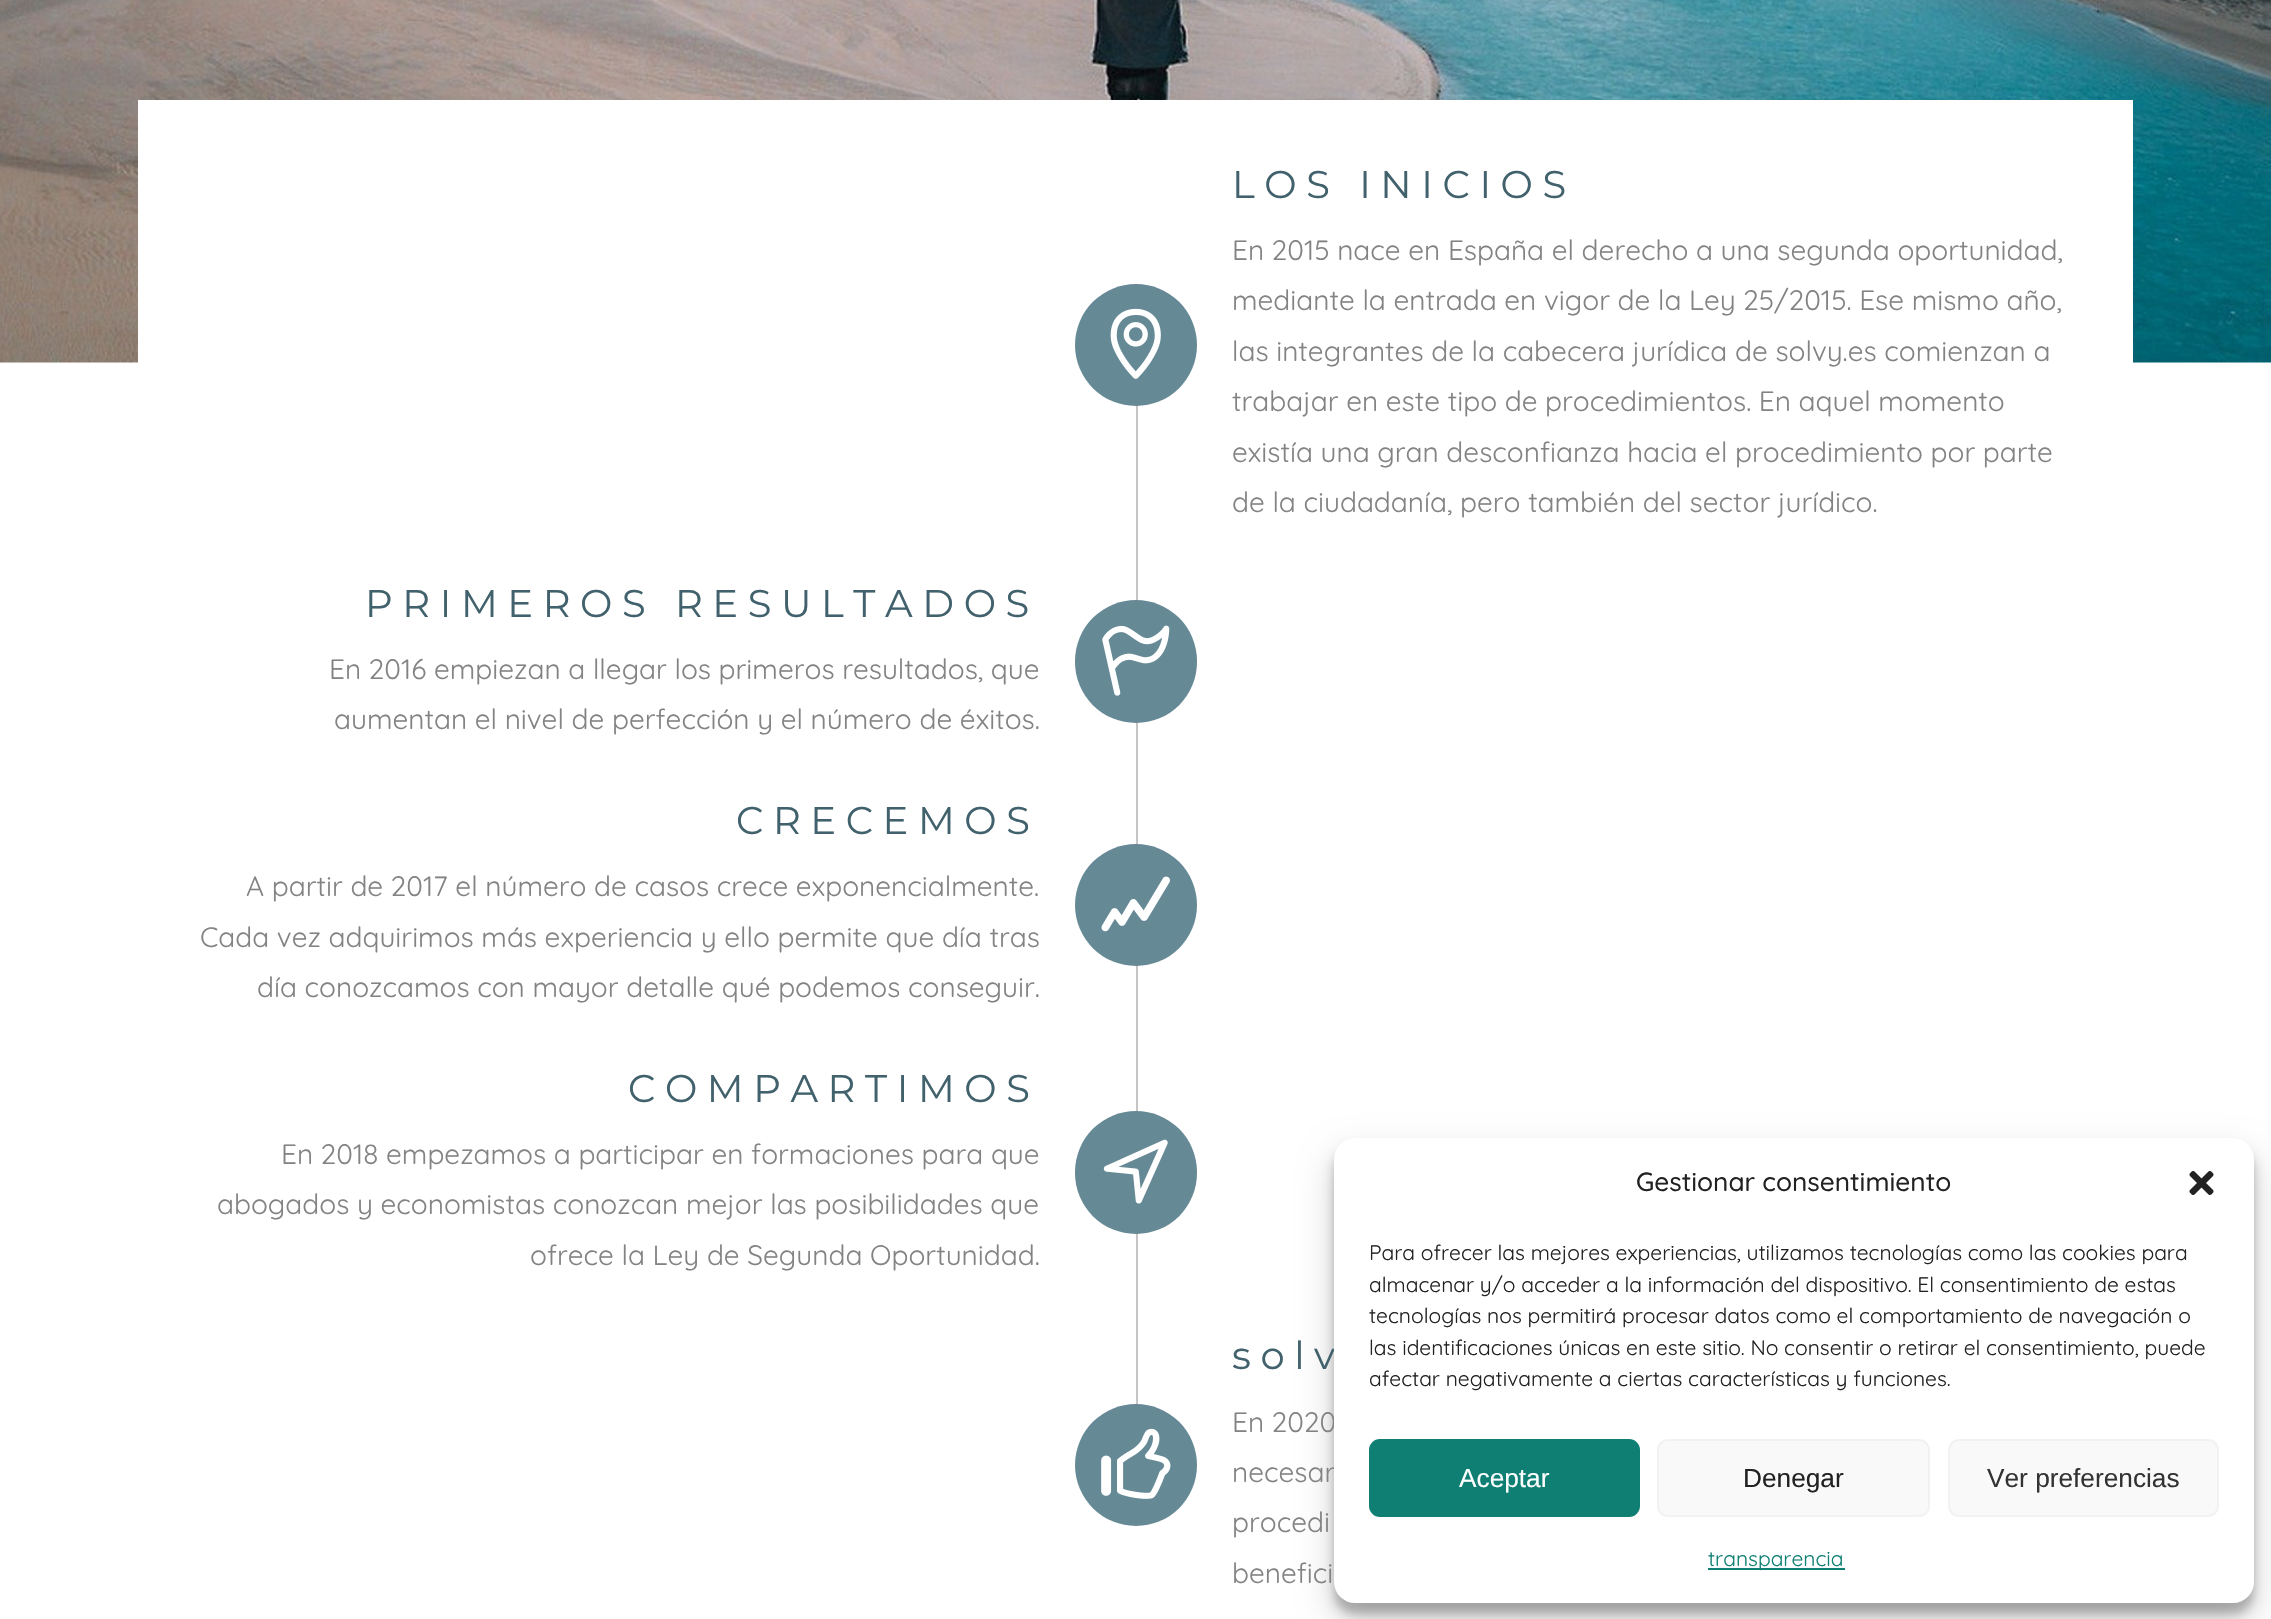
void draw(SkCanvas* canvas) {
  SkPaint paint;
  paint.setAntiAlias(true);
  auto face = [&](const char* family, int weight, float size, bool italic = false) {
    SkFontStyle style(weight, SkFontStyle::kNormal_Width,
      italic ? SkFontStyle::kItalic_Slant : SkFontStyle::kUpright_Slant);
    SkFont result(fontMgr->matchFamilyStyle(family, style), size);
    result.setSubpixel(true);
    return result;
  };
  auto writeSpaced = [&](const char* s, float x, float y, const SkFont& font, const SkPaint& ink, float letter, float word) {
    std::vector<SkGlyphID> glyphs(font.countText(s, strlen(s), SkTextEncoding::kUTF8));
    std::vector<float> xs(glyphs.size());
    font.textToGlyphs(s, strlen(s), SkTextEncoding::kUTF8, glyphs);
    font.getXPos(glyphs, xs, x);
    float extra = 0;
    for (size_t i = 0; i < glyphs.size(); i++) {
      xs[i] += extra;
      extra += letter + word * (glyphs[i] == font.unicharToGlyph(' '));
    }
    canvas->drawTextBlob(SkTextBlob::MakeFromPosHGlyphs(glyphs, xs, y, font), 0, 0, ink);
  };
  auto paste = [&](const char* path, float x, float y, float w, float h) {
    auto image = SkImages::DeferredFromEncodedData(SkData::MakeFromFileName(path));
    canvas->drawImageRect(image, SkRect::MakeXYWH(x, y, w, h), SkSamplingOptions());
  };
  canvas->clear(0xffffffff);
  paste("img/1.png", 0, 0, 2271, 363);
  paint.setColor(0xffffffff);
  canvas->drawRect(SkRect::MakeXYWH(138, 100, 1995, 263), paint);
  paint.setColor(0xffc5c5c5);
  canvas->drawRect(SkRect::MakeXYWH(1136, 405, 2, 1000), paint);
  paint.setColor(0xff668996);
  canvas->drawCircle(1136, 345, 61, paint);
  paste("img/2.png", 1110, 308, 51, 71);
  canvas->drawRoundRect(SkRect::MakeXYWH(1075, 600, 122, 123), 61, 61, paint);
  paste("img/3.png", 1102, 625, 68, 71);
  canvas->drawCircle(1136, 905, 61, paint);
  paste("img/4.png", 1101, 876, 69, 56);
  canvas->drawRoundRect(SkRect::MakeXYWH(1075, 1111, 122, 123), 61, 61, paint);
  paste("img/5.png", 1103, 1139, 65, 65);
  canvas->drawCircle(1136, 1465, 61, paint);
  paste("img/6.png", 1101, 1428, 70, 71);
  paint.setColor(0x3b000000);
  paint.setMaskFilter(SkMaskFilter::MakeBlur(kNormal_SkBlurStyle, 5));
  canvas->drawRoundRect(SkRect::MakeXYWH(1334, 1148, 920, 466), 21, 21, paint);
  paint.setMaskFilter(nullptr);
  paint.setColor(0x30000000);
  paint.setMaskFilter(SkMaskFilter::MakeBlur(kNormal_SkBlurStyle, 17.5f));
  canvas->drawRoundRect(SkRect::MakeXYWH(1334, 1155, 920, 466), 21, 21, paint);
  paint.setMaskFilter(nullptr);
  auto f0 = face("Montserrat", 100, 38.5f);
  paint.setColor(0xff41616c);
  writeSpaced("LOS INICIOS", 1232, 198, f0, paint, 9.6f, 0);
  auto f1 = face("Quicksand", 400, 28);
  paint.setColor(0xff838383);
  {
    const struct { const char* s; float x, y; } items[] = {
      {"En 2015 nace en España el derecho a una segunda oportunidad,", 1232, 260},
      {"mediante la entrada en vigor de la Ley 25/2015. Ese mismo año,", 1232, 310},
      {"las integrantes de la cabecera jurídica de solvy.es comienzan a", 1232, 361},
      {"trabajar en este tipo de procedimientos. En aquel momento", 1232, 411},
      {"existía una gran desconfianza hacia el procedimiento por parte", 1232, 462},
      {"de la ciudadanía, pero también del sector jurídico.", 1232, 512},
    };
    for (auto [s, x, y] : items) {
      canvas->drawString(s, x, y, f1, paint);
    }
  }
  paint.setColor(0xff41616c);
  writeSpaced("PRIMEROS RESULTADOS", 365, 617, f0, paint, 9.6f, 0);
  paint.setColor(0xff838383);
  canvas->drawString("En 2016 empiezan a llegar los primeros resultados, que", 329, 679, f1, paint);
  canvas->drawString("aumentan el nivel de perfección y el número de éxitos.", 334, 729, f1, paint);
  paint.setColor(0xff41616c);
  writeSpaced("CRECEMOS", 736, 834, f0, paint, 9.6f, 0);
  paint.setColor(0xff838383);
  {
    const struct { const char* s; float x, y; } items[] = {
      {"A partir de 2017 el número de casos crece exponencialmente.", 246, 896},
      {"Cada vez adquirimos más experiencia y ello permite que día tras", 200, 947},
      {"día conozcamos con mayor detalle qué podemos conseguir.", 257, 997},
    };
    for (auto [s, x, y] : items) {
      canvas->drawString(s, x, y, f1, paint);
    }
  }
  paint.setColor(0xff41616c);
  writeSpaced("COMPARTIMOS", 628, 1102, f0, paint, 9.6f, 0);
  paint.setColor(0xff838383);
  {
    const struct { const char* s; float x, y; } items[] = {
      {"En 2018 empezamos a participar en formaciones para que", 281, 1164},
      {"abogados y economistas conozcan mejor las posibilidades que", 217, 1214},
      {"ofrece la Ley de Segunda Oportunidad.", 530, 1265},
    };
    for (auto [s, x, y] : items) {
      canvas->drawString(s, x, y, f1, paint);
    }
  }
  paint.setColor(0xff41616c);
  writeSpaced("solv", 1232, 1369, f0, paint, 9.6f, 0);
  paint.setColor(0xff838383);
  {
    const struct { const char* s; float x, y; } items[] = {
      {"En 2020", 1232, 1432},
      {"necesar", 1232, 1482},
      {"procedi", 1232, 1532},
      {"benefici", 1232, 1583},
    };
    for (auto [s, x, y] : items) {
      canvas->drawString(s, x, y, f1, paint);
    }
  }
  paint.setColor(0xffffffff);
  canvas->drawRoundRect(SkRect::MakeXYWH(1334, 1138, 920, 465), 21, 21, paint);
  auto f2 = face("Quicksand", 500, 26.25f);
  paint.setColor(0xff222222);
  canvas->drawString("Gestionar consentimiento", 1636, 1191, f2, paint);
  paste("img/7.png", 2189, 1171, 25, 24);
  auto f3 = face("Quicksand", 400, 21);
  {
    const struct { const char* s; float x, y; } items[] = {
      {"Para ofrecer las mejores experiencias, utilizamos tecnologías como las cookies para", 1369, 1260},
      {"almacenar y/o acceder a la información del dispositivo. El consentimiento de estas", 1369, 1292},
      {"tecnologías nos permitirá procesar datos como el comportamiento de navegación o", 1369, 1323},
      {"las identificaciones únicas en este sitio. No consentir o retirar el consentimiento, puede", 1369, 1355},
      {"afectar negativamente a ciertas características y funciones.", 1369, 1386},
    };
    for (auto [s, x, y] : items) {
      canvas->drawString(s, x, y, f3, paint);
    }
  }
  paint.setColor(0xff0f7f74);
  canvas->drawRoundRect(SkRect::MakeXYWH(1370, 1440, 269, 76), 10, 10, paint);
  paint.setStroke(true);
  paint.setStrokeWidth(2);
  canvas->drawRoundRect(SkRect::MakeXYWH(1370, 1440, 269, 76), 10, 10, paint);
  auto f4 = face("Liberation Sans", 400, 26.25f);
  paint.setStroke(false);
  paint.setColor(0xffffffff);
  canvas->drawString("Aceptar", 1459, 1487, f4, paint);
  paint.setColor(0xfff9f9f9);
  canvas->drawRoundRect(SkRect::MakeXYWH(1658, 1440, 271, 76), 10, 10, paint);
  paint.setStroke(true);
  paint.setColor(0xfff2f2f2);
  canvas->drawRoundRect(SkRect::MakeXYWH(1658, 1440, 271, 76), 10, 10, paint);
  paint.setStroke(false);
  paint.setColor(0xff222222);
  canvas->drawString("Denegar", 1743, 1487, f4, paint);
  paint.setColor(0xfff9f9f9);
  canvas->drawRoundRect(SkRect::MakeXYWH(1949, 1440, 269, 76), 10, 10, paint);
  paint.setStroke(true);
  paint.setColor(0xfff2f2f2);
  canvas->drawRoundRect(SkRect::MakeXYWH(1949, 1440, 269, 76), 10, 10, paint);
  paint.setStroke(false);
  paint.setColor(0xff333333);
  canvas->drawString("Ver preferencias", 1987, 1487, f4, paint);
  paint.setColor(0xff0f7f74);
  canvas->drawRect(SkRect::MakeXYWH(1708, 1568, 137, 2), paint);
  canvas->drawString("transparencia", 1708, 1566, f3, paint);
}
